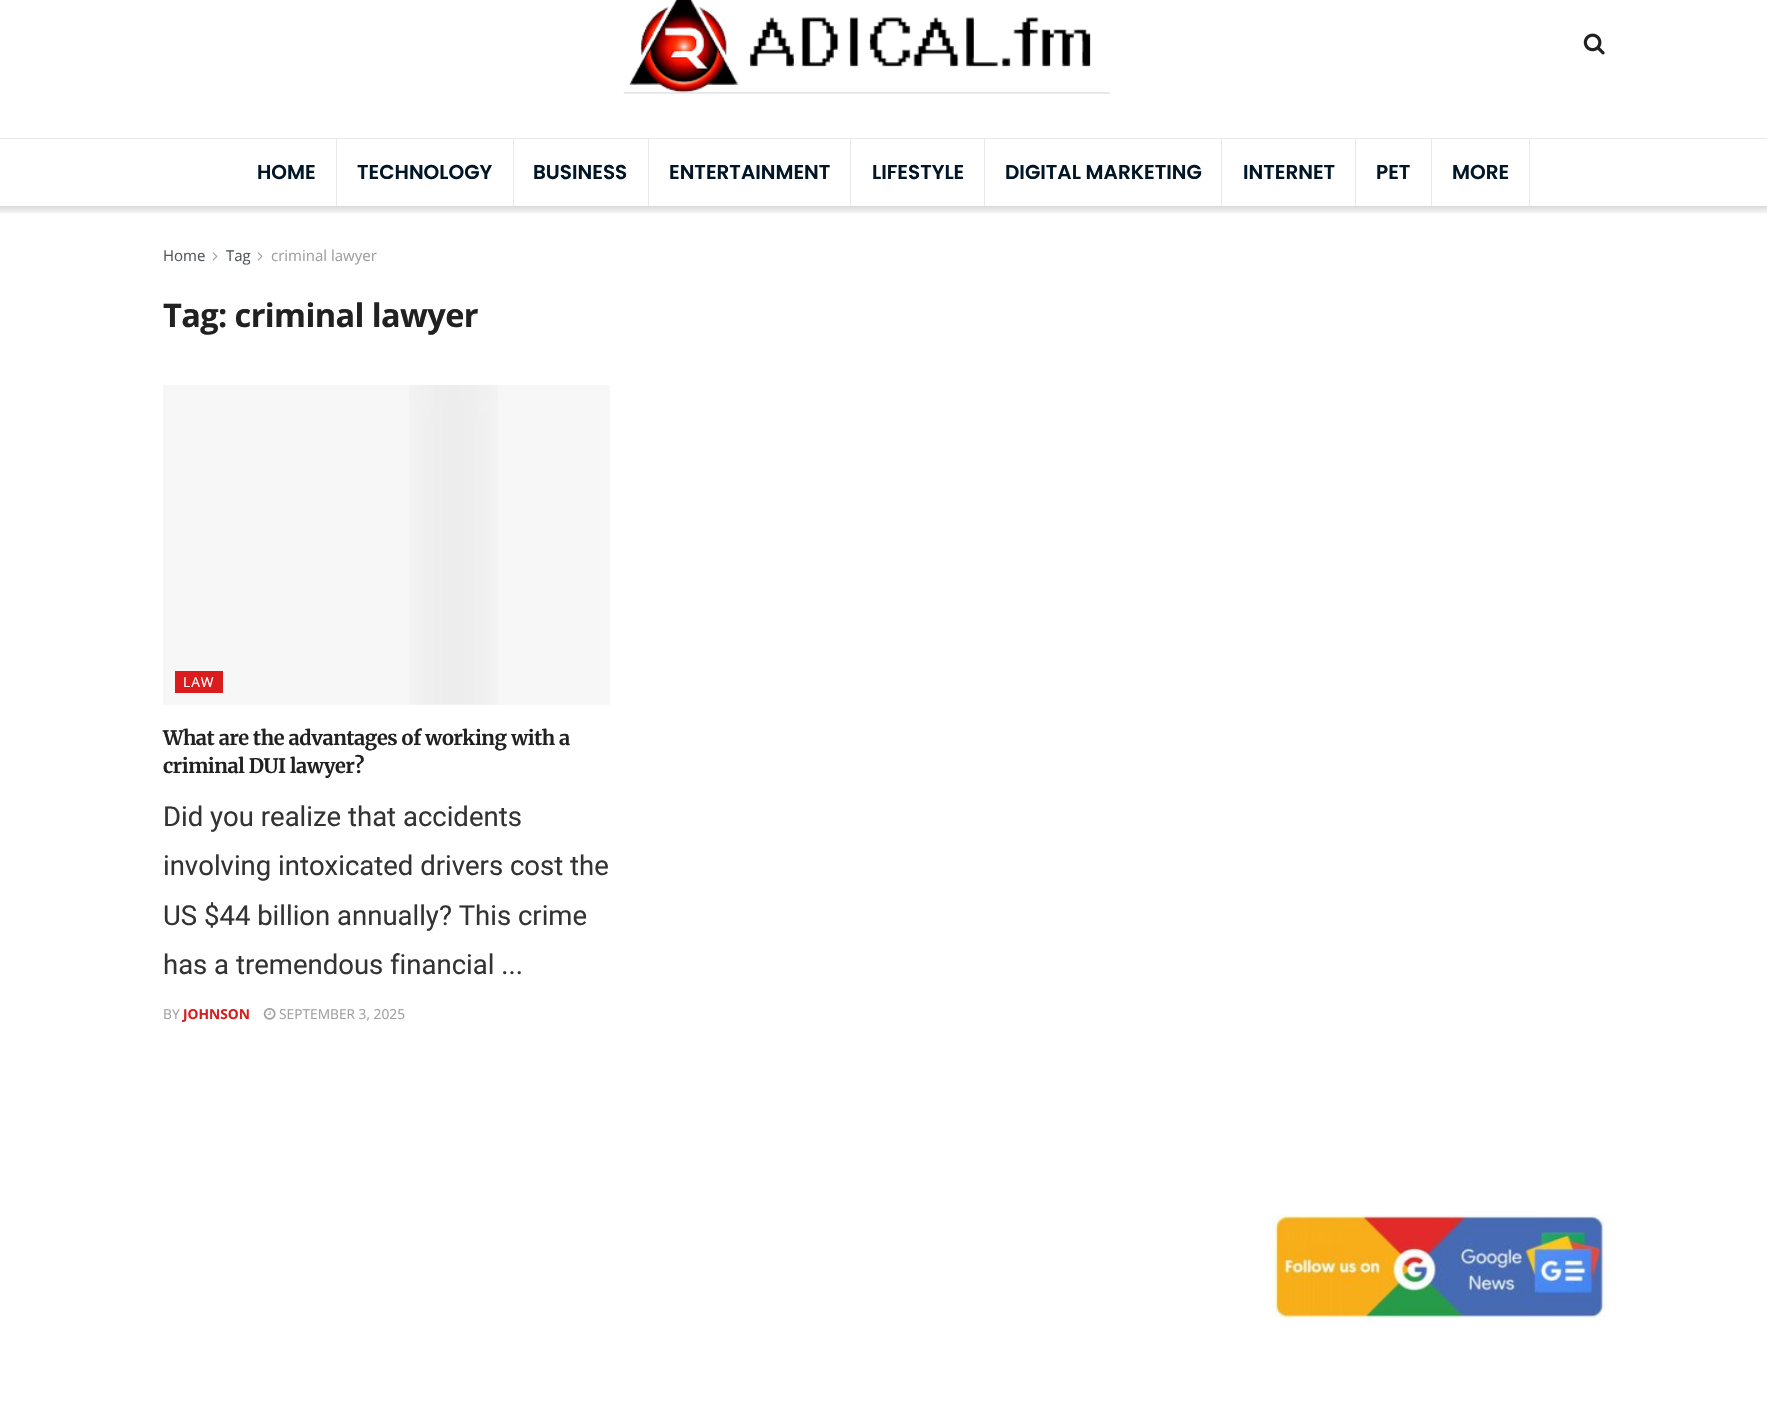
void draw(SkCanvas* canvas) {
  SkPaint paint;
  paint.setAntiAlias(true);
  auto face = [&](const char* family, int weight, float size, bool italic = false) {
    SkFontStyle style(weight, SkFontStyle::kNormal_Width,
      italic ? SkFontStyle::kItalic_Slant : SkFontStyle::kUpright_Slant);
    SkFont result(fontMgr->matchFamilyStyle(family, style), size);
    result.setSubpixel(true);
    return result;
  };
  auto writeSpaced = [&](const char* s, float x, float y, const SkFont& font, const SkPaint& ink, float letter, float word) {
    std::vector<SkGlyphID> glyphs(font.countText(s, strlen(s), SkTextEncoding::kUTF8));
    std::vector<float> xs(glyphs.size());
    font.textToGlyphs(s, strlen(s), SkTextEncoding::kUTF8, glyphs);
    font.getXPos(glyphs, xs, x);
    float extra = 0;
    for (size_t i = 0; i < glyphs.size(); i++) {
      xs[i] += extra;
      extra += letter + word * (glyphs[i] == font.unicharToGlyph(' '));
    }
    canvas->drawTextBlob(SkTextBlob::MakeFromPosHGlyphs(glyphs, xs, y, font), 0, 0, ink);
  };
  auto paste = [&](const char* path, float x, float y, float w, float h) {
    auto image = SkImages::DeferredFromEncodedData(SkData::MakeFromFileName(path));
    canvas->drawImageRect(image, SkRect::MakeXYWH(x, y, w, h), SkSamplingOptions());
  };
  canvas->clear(0xffffffff);
  paste("img/1.png", 623, 0, 487, 94);
  paste("img/2.png", 1583, 33, 22, 22);
  {
    const struct { float x, y, w, h; SkColor color; } items[] = {
      {0, 138, 1767, 1, 0xffe8e8e8},
      {1529, 139, 1, 67, 0xffe8e8e8},
      {336, 139, 1, 67, 0xffe8e8e8},
      {513, 139, 1, 67, 0xffe8e8e8},
      {648, 139, 1, 67, 0xffe8e8e8},
      {850, 139, 1, 67, 0xffe8e8e8},
      {984, 139, 1, 67, 0xffe8e8e8},
      {1221, 139, 1, 67, 0xffe8e8e8},
      {1355, 139, 1, 67, 0xffe8e8e8},
      {1431, 139, 1, 67, 0xffe8e8e8},
    };
    for (auto [x, y, w, h, color] : items) {
      paint.setColor(color);
      canvas->drawRect(SkRect::MakeXYWH(x, y, w, h), paint);
    }
  }
  {
    const SkColor colors[] = {0xffd9d9d9, 0xffffffff};
    const float stops[] = {0, 1};
    const SkPoint ends[] = {{884, 206}, {884, 215}};
    paint.setShader(SkGradientShader::MakeLinear(ends, colors, stops, 2, SkTileMode::kClamp));
    paint.setAlpha(255);
  }
  canvas->drawRect(SkRect::MakeXYWH(0, 206, 1767, 8), paint);
  paste("img/3.png", 212, 252, 6, 9);
  paste("img/3.png", 257, 252, 6, 9);
  paint.setShader(nullptr);
  paint.setColor(0xfff7f7f7);
  canvas->drawRect(SkRect::MakeXYWH(163, 385, 447, 320), paint);
  paste("img/4.png", 409, 385, 89, 320);
  paint.setColor(0xffdb1c1c);
  canvas->drawRect(SkRect::MakeXYWH(175, 671, 48, 22), paint);
  paste("img/5.png", 263, 1008, 13, 12);
  paste("img/6.png", 1272, 1214, 333, 104);
  auto f0 = face("Poppins", 600, 20);
  paint.setColor(0xff011627);
  {
    const struct { const char* s; float x, y; } items[] = {
      {"HOME", 257, 179},
      {"TECHNOLOGY", 357, 179},
      {"BUSINESS", 533, 179},
      {"ENTERTAINMENT", 669, 179},
      {"LIFESTYLE", 872, 179},
      {"DIGITAL MARKETING", 1005, 179},
      {"INTERNET", 1243, 179},
      {"PET", 1376, 179},
      {"MORE", 1452, 179},
    };
    for (auto [s, x, y] : items) {
      canvas->drawString(s, x, y, f0, paint);
    }
  }
  auto f1 = face("Open Sans", 400, 15);
  paint.setColor(0xff53585c);
  canvas->drawString("Home", 163, 261, f1, paint);
  canvas->drawString("Tag", 226, 261, f1, paint);
  paint.setColor(0xffa0a0a0);
  canvas->drawString("criminal lawyer", 271, 261, f1, paint);
  auto f2 = face("Open Sans", 700, 32.5f);
  paint.setColor(0xff212121);
  writeSpaced("Tag: criminal lawyer", 163, 327, f2, paint, -0.6f, 0);
  auto f3 = face("Open Sans", 400, 13.75f);
  paint.setColor(0xffffffff);
  writeSpaced("LAW", 183, 687, f3, paint, 1, 0);
  auto f4 = face("Merriweather", 300, 20);
  paint.setColor(0xff212121);
  writeSpaced("What are the advantages of working with a", 163, 745, f4, paint, -0.4f, 0);
  writeSpaced("criminal DUI lawyer?", 163, 773, f4, paint, -0.4f, 0);
  auto f5 = face("Roboto", 400, 27.5f);
  paint.setColor(0xff333333);
  {
    const struct { const char* s; float x, y; } items[] = {
      {"Did you realize that accidents", 163, 826},
      {"involving intoxicated drivers cost the", 163, 875},
      {"US $44 billion annually? This crime", 163, 925},
      {"has a tremendous financial ...", 163, 974},
    };
    for (auto [s, x, y] : items) {
      canvas->drawString(s, x, y, f5, paint);
    }
  }
  paint.setColor(0xffa0a0a0);
  canvas->drawString("BY", 163, 1019, f3, paint);
  auto f6 = face("Open Sans", 700, 13.75f);
  paint.setColor(0xffdb1c1c);
  canvas->drawString("JOHNSON", 183, 1019, f6, paint);
  paint.setColor(0xffa0a0a0);
  canvas->drawString("SEPTEMBER 3, 2025", 279, 1019, f3, paint);
}
